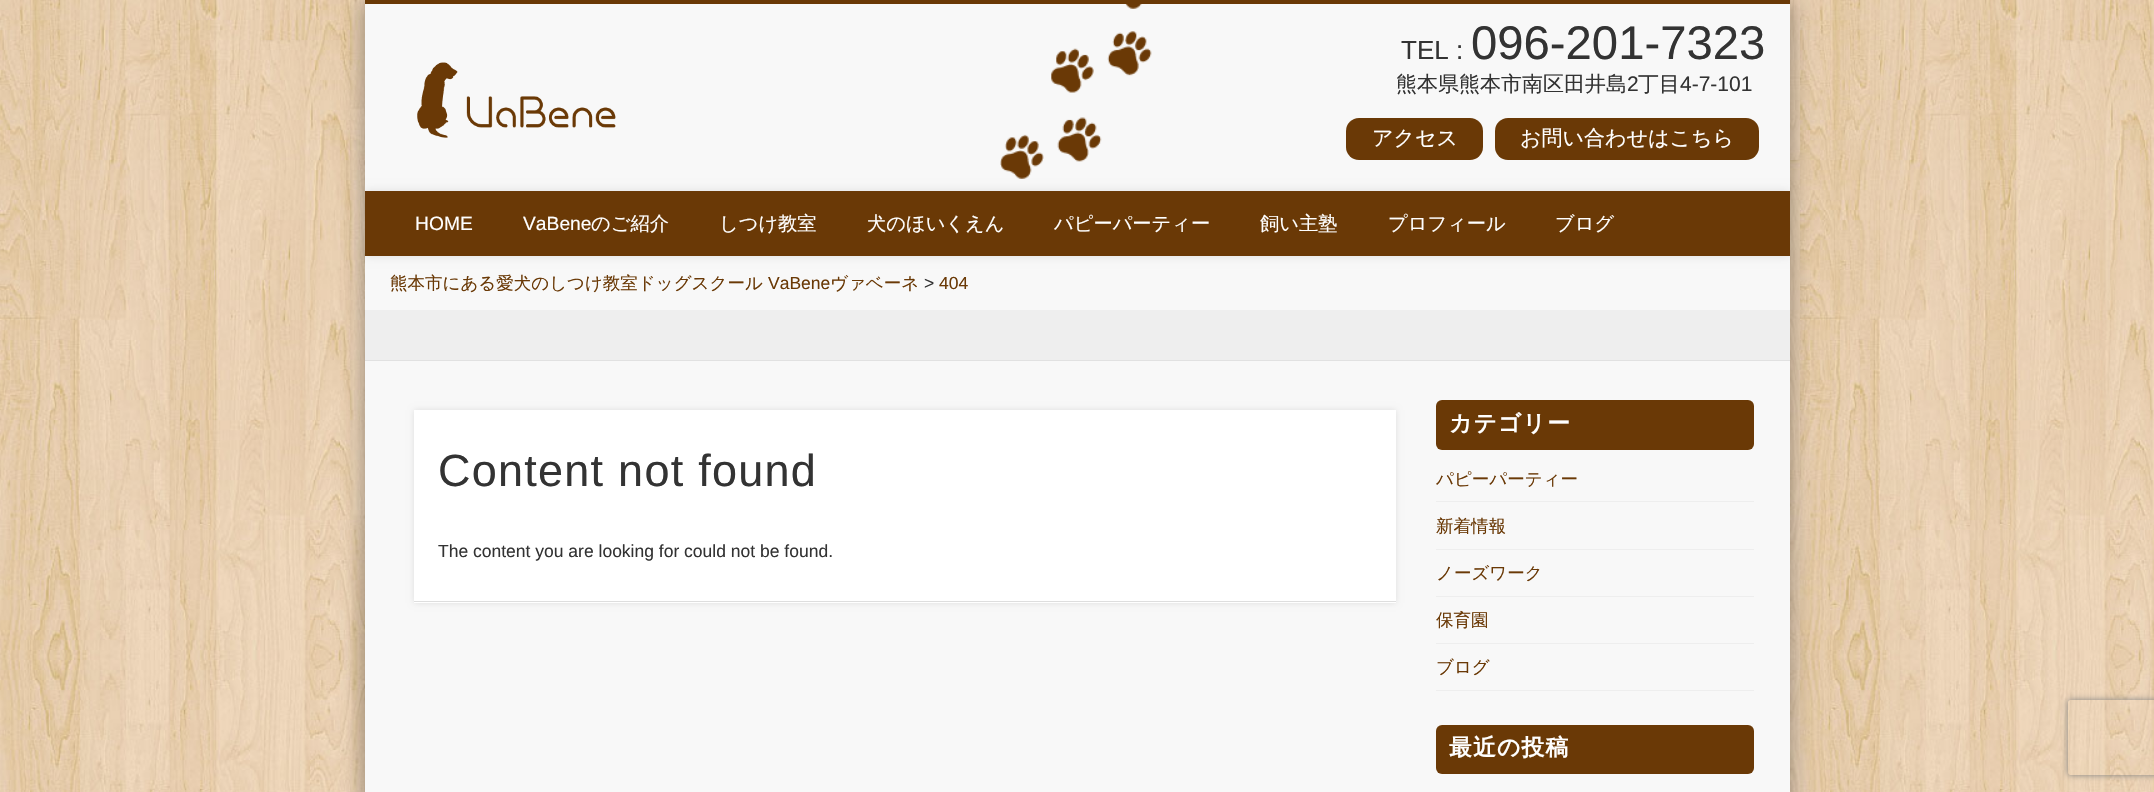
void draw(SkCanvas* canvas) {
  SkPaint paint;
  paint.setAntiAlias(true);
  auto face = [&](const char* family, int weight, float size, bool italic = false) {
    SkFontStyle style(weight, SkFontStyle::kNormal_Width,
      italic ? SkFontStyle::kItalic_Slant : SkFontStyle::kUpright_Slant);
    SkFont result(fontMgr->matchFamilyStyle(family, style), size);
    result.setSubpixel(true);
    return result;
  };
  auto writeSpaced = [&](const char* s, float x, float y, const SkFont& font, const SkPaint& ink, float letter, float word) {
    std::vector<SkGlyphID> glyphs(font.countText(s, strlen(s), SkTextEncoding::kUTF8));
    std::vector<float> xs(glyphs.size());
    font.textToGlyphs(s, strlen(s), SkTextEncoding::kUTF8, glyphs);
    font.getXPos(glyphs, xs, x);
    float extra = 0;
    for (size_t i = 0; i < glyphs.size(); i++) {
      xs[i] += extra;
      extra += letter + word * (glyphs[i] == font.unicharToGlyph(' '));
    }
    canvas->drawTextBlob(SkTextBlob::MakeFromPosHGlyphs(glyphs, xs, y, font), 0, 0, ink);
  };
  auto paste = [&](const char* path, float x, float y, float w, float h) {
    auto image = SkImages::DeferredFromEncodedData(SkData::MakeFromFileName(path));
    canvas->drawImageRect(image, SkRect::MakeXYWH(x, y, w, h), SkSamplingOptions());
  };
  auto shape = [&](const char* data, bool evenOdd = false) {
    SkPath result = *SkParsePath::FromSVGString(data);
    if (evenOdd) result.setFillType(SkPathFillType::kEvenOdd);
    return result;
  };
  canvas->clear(0xffffffff);
  paste("img/1.png", 0, 0, 2154, 792);
  paint.setColor(0x66000000);
  paint.setMaskFilter(SkMaskFilter::MakeBlur(kNormal_SkBlurStyle, 11));
  canvas->drawRect(SkRect::MakeXYWH(365, 0, 1425, 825), paint);
  paint.setMaskFilter(nullptr);
  paint.setColor(0xfff8f8f8);
  canvas->drawRect(SkRect::MakeXYWH(365, 4, 1425, 788), paint);
  paste("img/2.png", 1000, 4, 152, 175);
  paint.setColor(0xff6a3906);
  canvas->drawRect(SkRect::MakeXYWH(365, 0, 1425, 4), paint);
  paste("img/3.png", 417, 62, 199, 76);
  canvas->drawRoundRect(SkRect::MakeXYWH(1346, 118, 137, 42), 13, 13, paint);
  canvas->drawRoundRect(SkRect::MakeXYWH(1495, 118, 264, 42), 13, 13, paint);
  canvas->save();
  canvas->clipRect(SkRect::MakeXYWH(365, 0, 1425, 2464));
  paint.setColor(0x1a000000);
  paint.setMaskFilter(SkMaskFilter::MakeBlur(kNormal_SkBlurStyle, 4.5f));
  canvas->drawRect(SkRect::MakeXYWH(365, 191, 1425, 65), paint);
  paint.setMaskFilter(nullptr);
  canvas->restore();
  {
    const struct { float x, y, w, h; SkColor color; } items[] = {
      {365, 191, 1425, 65, 0xff6a3906},
      {365, 310, 1425, 50, 0xffeeeeee},
      {365, 360, 1425, 1, 0xffe1e1e1},
    };
    for (auto [x, y, w, h, color] : items) {
      paint.setColor(color);
      canvas->drawRect(SkRect::MakeXYWH(x, y, w, h), paint);
    }
  }
  paint.setColor(0x1a000000);
  paint.setMaskFilter(SkMaskFilter::MakeBlur(kNormal_SkBlurStyle, 3));
  canvas->drawRect(SkRect::MakeXYWH(414, 410, 982, 193), paint);
  paint.setMaskFilter(nullptr);
  paint.setColor(0xffffffff);
  canvas->drawRect(SkRect::MakeXYWH(414, 410, 982, 193), paint);
  paint.setColor(0xffdedede);
  canvas->drawRect(SkRect::MakeXYWH(414, 601, 982, 1), paint);
  paint.setColor(0xff6a3906);
  canvas->drawRoundRect(SkRect::MakeXYWH(1436, 400, 318, 50), 6, 6, paint);
  {
    const struct { float x, y, w, h; SkColor color; } items[] = {
      {1436, 501, 318, 1, 0xffeeeeee},
      {1436, 549, 318, 1, 0xffeeeeee},
      {1436, 596, 318, 1, 0xffeeeeee},
      {1436, 643, 318, 1, 0xffeeeeee},
      {1436, 690, 318, 1, 0xffeeeeee},
    };
    for (auto [x, y, w, h, color] : items) {
      paint.setColor(color);
      canvas->drawRect(SkRect::MakeXYWH(x, y, w, h), paint);
    }
  }
  paint.setColor(0xff6a3906);
  canvas->drawRoundRect(SkRect::MakeXYWH(1436, 725, 318, 49), 6, 6, paint);
  canvas->save();
  canvas->clipPath(shape("M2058 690H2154V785H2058ZM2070.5 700H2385.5C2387 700 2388 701 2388 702.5V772.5C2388 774 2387 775 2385.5 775H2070.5C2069 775 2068 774 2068 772.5V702.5C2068 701 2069 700 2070.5 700Z", true), true);
  paint.setColor(0xff808080);
  paint.setMaskFilter(SkMaskFilter::MakeBlur(kNormal_SkBlurStyle, 3));
  canvas->drawRoundRect(SkRect::MakeXYWH(2068, 700, 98, 75), 2.5f, 2.5f, paint);
  paint.setMaskFilter(nullptr);
  canvas->restore();
  auto f0 = face("Liberation Sans", 400, 26);
  paint.setColor(0xff333333);
  canvas->drawString("TEL :", 1401, 59, f0, paint);
  auto f1 = face("Liberation Sans", 400, 47.25f);
  canvas->drawString("096-201-7323", 1471, 59, f1, paint);
  auto f2 = face("WenQuanYi Zen Hei", 500, 21);
  canvas->drawString("熊本県熊本市南区田井島", 1396, 91, f2, paint);
  auto f3 = face("Liberation Sans", 400, 21);
  canvas->drawString("2", 1627, 91, f3, paint);
  canvas->drawString("丁目", 1638, 91, f2, paint);
  canvas->drawString("4-7-101", 1680, 91, f3, paint);
  paint.setColor(0xffffffff);
  canvas->drawString("アクセス", 1372, 145, f2, paint);
  canvas->drawString("お問い合わせはこちら", 1520, 145, f2, paint);
  auto f4 = face("Liberation Sans", 400, 19.25f);
  canvas->drawString("HOME", 415, 230, f4, paint);
  canvas->drawString("VaBene", 523, 230, f4, paint);
  auto f5 = face("WenQuanYi Zen Hei", 500, 19.25f);
  {
    const struct { const char* s; float x, y; } items[] = {
      {"のご紹介", 591, 230},
      {"しつけ教室", 719, 230},
      {"犬のほいくえん", 867, 230},
      {"パピーパーティー", 1054, 230},
      {"飼い主塾", 1260, 230},
      {"プロフィール", 1388, 230},
      {"ブログ", 1555, 230},
    };
    for (auto [s, x, y] : items) {
      canvas->drawString(s, x, y, f5, paint);
    }
  }
  auto f6 = face("WenQuanYi Zen Hei", 500, 17.5f);
  paint.setColor(0xff6a3906);
  canvas->drawString("熊本市にある愛犬のしつけ教室ドッグスクール", 390, 289, f6, paint);
  auto f7 = face("Liberation Sans", 400, 17.5f);
  canvas->drawString("VaBene", 768, 289, f7, paint);
  canvas->drawString("ヴァベーネ", 830, 289, f6, paint);
  paint.setColor(0xff333333);
  canvas->drawString(">", 924, 289, f7, paint);
  paint.setColor(0xff6a3906);
  canvas->drawString("404", 939, 289, f7, paint);
  auto f8 = face("Liberation Sans", 400, 45);
  paint.setColor(0xff333333);
  writeSpaced("Content not found", 438, 486, f8, paint, 1.25f, 0);
  canvas->drawString("The content you are looking for could not be found.", 438, 557, f7, paint);
  auto f9 = face("WenQuanYi Zen Hei", 700, 22.75f);
  paint.setColor(0xffffffff);
  writeSpaced("カテゴリー", 1449, 431, f9, paint, 1.25f, 0);
  paint.setColor(0xff6a3906);
  {
    const struct { const char* s; float x, y; } items[] = {
      {"パピーパーティー", 1436, 485},
      {"新着情報", 1436, 532},
      {"ノーズワーク", 1436, 579},
      {"保育園", 1436, 626},
      {"ブログ", 1436, 673},
    };
    for (auto [s, x, y] : items) {
      canvas->drawString(s, x, y, f6, paint);
    }
  }
  paint.setColor(0xffffffff);
  writeSpaced("最近の投稿", 1449, 755, f9, paint, 1.25f, 0);
}
